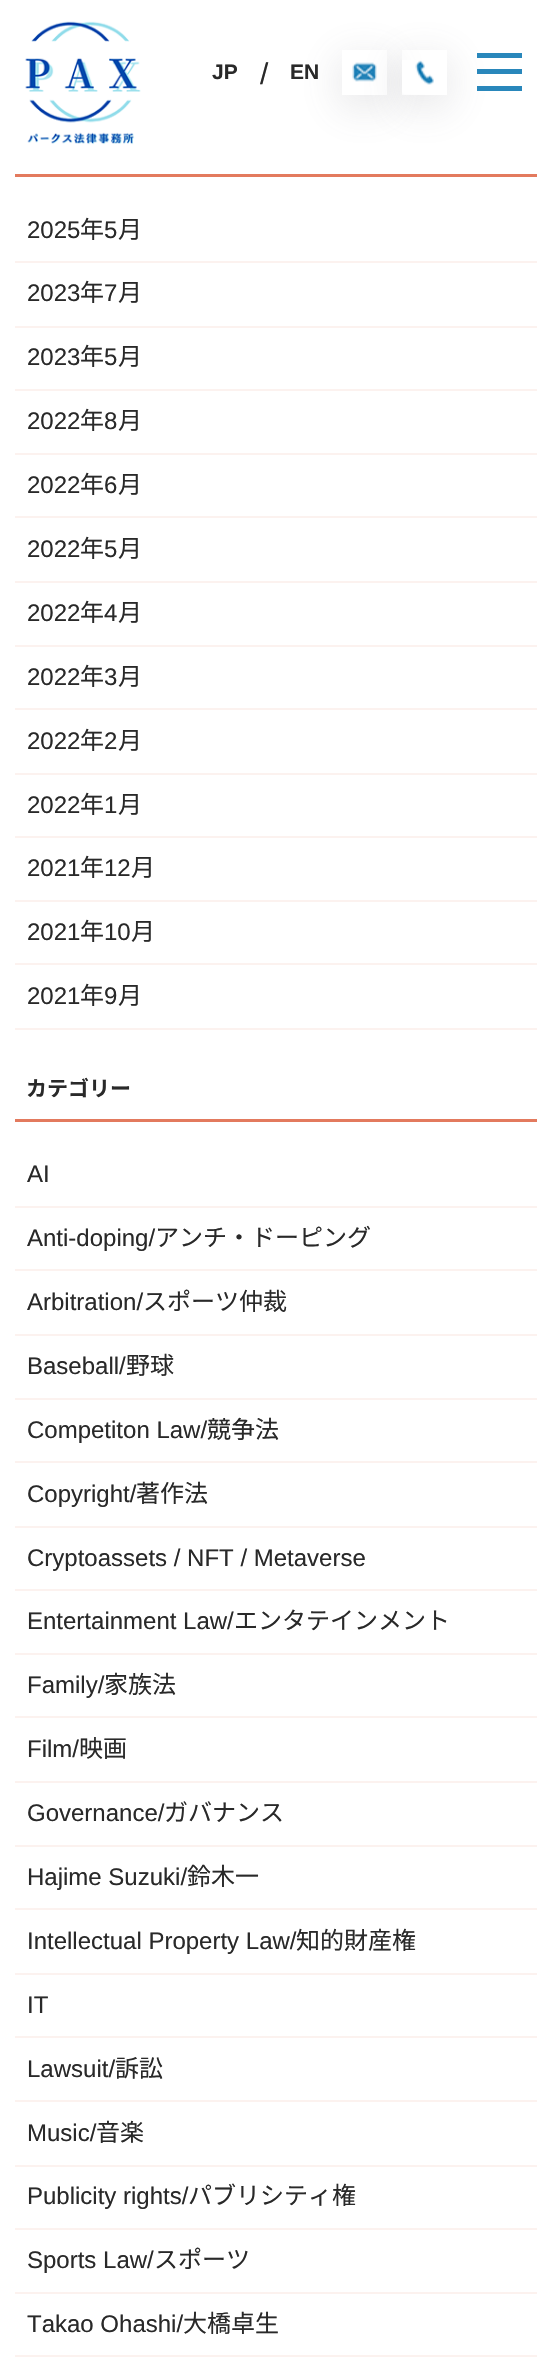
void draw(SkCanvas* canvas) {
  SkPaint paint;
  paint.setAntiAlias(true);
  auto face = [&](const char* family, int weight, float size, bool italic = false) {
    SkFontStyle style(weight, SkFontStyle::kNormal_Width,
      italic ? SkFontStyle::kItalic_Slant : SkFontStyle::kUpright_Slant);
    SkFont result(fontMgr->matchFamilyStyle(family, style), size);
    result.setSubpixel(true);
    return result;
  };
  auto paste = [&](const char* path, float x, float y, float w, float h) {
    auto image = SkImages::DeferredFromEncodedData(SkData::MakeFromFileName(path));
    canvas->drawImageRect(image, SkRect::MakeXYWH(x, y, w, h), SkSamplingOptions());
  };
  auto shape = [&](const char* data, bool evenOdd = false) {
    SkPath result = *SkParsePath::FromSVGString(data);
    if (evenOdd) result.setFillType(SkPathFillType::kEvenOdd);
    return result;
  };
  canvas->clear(0xffffffff);
  paste("img/1.png", 25, 21, 116, 124);
  canvas->save();
  canvas->clipPath(shape("M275 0H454V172H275ZM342 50H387V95H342Z", true), true);
  paint.setColor(0x3364646f);
  paint.setMaskFilter(SkMaskFilter::MakeBlur(kNormal_SkBlurStyle, 22));
  canvas->drawRect(SkRect::MakeXYWH(342, 60, 45, 45), paint);
  paint.setMaskFilter(nullptr);
  canvas->restore();
  paste("img/2.png", 352, 62, 25, 20);
  canvas->save();
  canvas->clipPath(shape("M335 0H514V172H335ZM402 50H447V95H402Z", true), true);
  paint.setMaskFilter(SkMaskFilter::MakeBlur(kNormal_SkBlurStyle, 22));
  canvas->drawRect(SkRect::MakeXYWH(402, 60, 45, 45), paint);
  paint.setMaskFilter(nullptr);
  canvas->restore();
  {
    const struct { float x, y, w, h; SkColor color; } items[] = {
      {477, 53, 45, 5, 0xff2987bb},
      {477, 69, 45, 5, 0xff2987bb},
      {477, 86, 45, 5, 0xff2987bb},
    };
    for (auto [x, y, w, h, color] : items) {
      paint.setColor(color);
      canvas->drawRect(SkRect::MakeXYWH(x, y, w, h), paint);
    }
  }
  paste("img/3.png", 402, 60, 32, 35);
  {
    const struct { float x, y, w, h; SkColor color; } items[] = {
      {15, 174, 522, 3, 0xffe37a5e},
      {15, 261, 522, 2, 0xfffcf2ef},
      {15, 326, 522, 2, 0xfffcf2ef},
      {15, 389, 522, 2, 0xfffcf2ef},
      {15, 453, 522, 2, 0xfffcf2ef},
      {15, 516, 522, 2, 0xfffcf2ef},
      {15, 581, 522, 2, 0xfffcf2ef},
      {15, 645, 522, 2, 0xfffcf2ef},
      {15, 708, 522, 2, 0xfffcf2ef},
      {15, 773, 522, 2, 0xfffcf2ef},
      {15, 836, 522, 2, 0xfffcf2ef},
      {15, 900, 522, 2, 0xfffcf2ef},
      {15, 963, 522, 2, 0xfffcf2ef},
      {15, 1028, 522, 2, 0xfffcf2ef},
      {15, 1119, 522, 3, 0xffe37a5e},
      {15, 1206, 522, 2, 0xfffcf2ef},
      {15, 1269, 522, 2, 0xfffcf2ef},
      {15, 1334, 522, 2, 0xfffcf2ef},
      {15, 1398, 522, 2, 0xfffcf2ef},
      {15, 1461, 522, 2, 0xfffcf2ef},
      {15, 1526, 522, 2, 0xfffcf2ef},
      {15, 1589, 522, 2, 0xfffcf2ef},
      {15, 1653, 522, 2, 0xfffcf2ef},
      {15, 1716, 522, 2, 0xfffcf2ef},
      {15, 1781, 522, 2, 0xfffcf2ef},
      {15, 1845, 522, 2, 0xfffcf2ef},
      {15, 1908, 522, 2, 0xfffcf2ef},
      {15, 1973, 522, 2, 0xfffcf2ef},
      {15, 2036, 522, 2, 0xfffcf2ef},
      {15, 2100, 522, 2, 0xfffcf2ef},
      {15, 2165, 522, 2, 0xfffcf2ef},
      {15, 2228, 522, 2, 0xfffcf2ef},
      {15, 2292, 522, 2, 0xfffcf2ef},
      {15, 2355, 522, 2, 0xfffcf2ef},
    };
    for (auto [x, y, w, h, color] : items) {
      paint.setColor(color);
      canvas->drawRect(SkRect::MakeXYWH(x, y, w, h), paint);
    }
  }
  auto f0 = face("Liberation Sans", 700, 21);
  paint.setColor(0xff292929);
  canvas->drawString("JP", 212, 79, f0, paint);
  auto f1 = face("Liberation Sans", 400, 30);
  canvas->drawString("/", 260, 84, f1, paint);
  canvas->drawString("EN", 290, 79, f0, paint);
  auto f2 = face("Liberation Sans", 400, 24);
  canvas->drawString("2025", 27, 238, f2, paint);
  auto f3 = face("Noto Sans JP", 400, 24);
  canvas->drawString("年", 80, 238, f3, paint);
  canvas->drawString("5", 104, 238, f2, paint);
  canvas->drawString("月", 118, 238, f3, paint);
  canvas->drawString("2023", 27, 301, f2, paint);
  canvas->drawString("年", 80, 301, f3, paint);
  canvas->drawString("7", 104, 301, f2, paint);
  canvas->drawString("月", 118, 301, f3, paint);
  canvas->drawString("2023", 27, 365, f2, paint);
  canvas->drawString("年", 80, 365, f3, paint);
  canvas->drawString("5", 104, 365, f2, paint);
  canvas->drawString("月", 118, 365, f3, paint);
  canvas->drawString("2022", 27, 429, f2, paint);
  canvas->drawString("年", 80, 429, f3, paint);
  canvas->drawString("8", 104, 429, f2, paint);
  canvas->drawString("月", 118, 429, f3, paint);
  canvas->drawString("2022", 27, 493, f2, paint);
  canvas->drawString("年", 80, 493, f3, paint);
  canvas->drawString("6", 104, 493, f2, paint);
  canvas->drawString("月", 118, 493, f3, paint);
  canvas->drawString("2022", 27, 557, f2, paint);
  canvas->drawString("年", 80, 557, f3, paint);
  canvas->drawString("5", 104, 557, f2, paint);
  canvas->drawString("月", 118, 557, f3, paint);
  canvas->drawString("2022", 27, 621, f2, paint);
  canvas->drawString("年", 80, 621, f3, paint);
  canvas->drawString("4", 104, 621, f2, paint);
  canvas->drawString("月", 118, 621, f3, paint);
  canvas->drawString("2022", 27, 685, f2, paint);
  canvas->drawString("年", 80, 685, f3, paint);
  canvas->drawString("3", 104, 685, f2, paint);
  canvas->drawString("月", 118, 685, f3, paint);
  canvas->drawString("2022", 27, 749, f2, paint);
  canvas->drawString("年", 80, 749, f3, paint);
  canvas->drawString("2", 104, 749, f2, paint);
  canvas->drawString("月", 118, 749, f3, paint);
  canvas->drawString("2022", 27, 813, f2, paint);
  canvas->drawString("年", 80, 813, f3, paint);
  canvas->drawString("1", 104, 813, f2, paint);
  canvas->drawString("月", 118, 813, f3, paint);
  canvas->drawString("2021", 27, 876, f2, paint);
  canvas->drawString("年", 80, 876, f3, paint);
  canvas->drawString("12", 104, 876, f2, paint);
  canvas->drawString("月", 131, 876, f3, paint);
  canvas->drawString("2021", 27, 940, f2, paint);
  canvas->drawString("年", 80, 940, f3, paint);
  canvas->drawString("10", 104, 940, f2, paint);
  canvas->drawString("月", 131, 940, f3, paint);
  canvas->drawString("2021", 27, 1004, f2, paint);
  canvas->drawString("年", 80, 1004, f3, paint);
  canvas->drawString("9", 104, 1004, f2, paint);
  canvas->drawString("月", 118, 1004, f3, paint);
  auto f4 = face("Noto Sans JP", 700, 21);
  canvas->drawString("カテゴリー", 26, 1096, f4, paint);
  canvas->drawString("AI", 27, 1182, f2, paint);
  canvas->drawString("Anti-doping/", 27, 1246, f2, paint);
  canvas->drawString("アンチ・ドーピング", 155, 1246, f3, paint);
  canvas->drawString("Arbitration/", 27, 1310, f2, paint);
  canvas->drawString("スポーツ仲裁", 143, 1310, f3, paint);
  canvas->drawString("Baseball/", 27, 1374, f2, paint);
  canvas->drawString("野球", 126, 1374, f3, paint);
  canvas->drawString("Competiton Law/", 27, 1438, f2, paint);
  canvas->drawString("競争法", 207, 1438, f3, paint);
  canvas->drawString("Copyright/", 27, 1502, f2, paint);
  canvas->drawString("著作法", 136, 1502, f3, paint);
  canvas->drawString("Cryptoassets / NFT / Metaverse", 27, 1566, f2, paint);
  canvas->drawString("Entertainment Law/", 27, 1629, f2, paint);
  canvas->drawString("エンタテインメント", 234, 1629, f3, paint);
  canvas->drawString("Family/", 27, 1693, f2, paint);
  canvas->drawString("家族法", 104, 1693, f3, paint);
  canvas->drawString("Film/", 27, 1757, f2, paint);
  canvas->drawString("映画", 79, 1757, f3, paint);
  canvas->drawString("Governance/", 27, 1821, f2, paint);
  canvas->drawString("ガバナンス", 164, 1821, f3, paint);
  canvas->drawString("Hajime Suzuki/", 27, 1885, f2, paint);
  canvas->drawString("鈴木一", 187, 1885, f3, paint);
  canvas->drawString("Intellectual Property Law/", 27, 1949, f2, paint);
  canvas->drawString("知的財産権", 296, 1949, f3, paint);
  canvas->drawString("IT", 27, 2013, f2, paint);
  canvas->drawString("Lawsuit/", 27, 2077, f2, paint);
  canvas->drawString("訴訟", 115, 2077, f3, paint);
  canvas->drawString("Music/", 27, 2141, f2, paint);
  canvas->drawString("音楽", 96, 2141, f3, paint);
  canvas->drawString("Publicity rights/", 27, 2204, f2, paint);
  canvas->drawString("パブリシティ権", 188, 2204, f3, paint);
  canvas->drawString("Sports Law/", 27, 2268, f2, paint);
  canvas->drawString("スポーツ", 154, 2268, f3, paint);
  canvas->drawString("Takao Ohashi/", 27, 2332, f2, paint);
  canvas->drawString("大橋卓生", 183, 2332, f3, paint);
}
